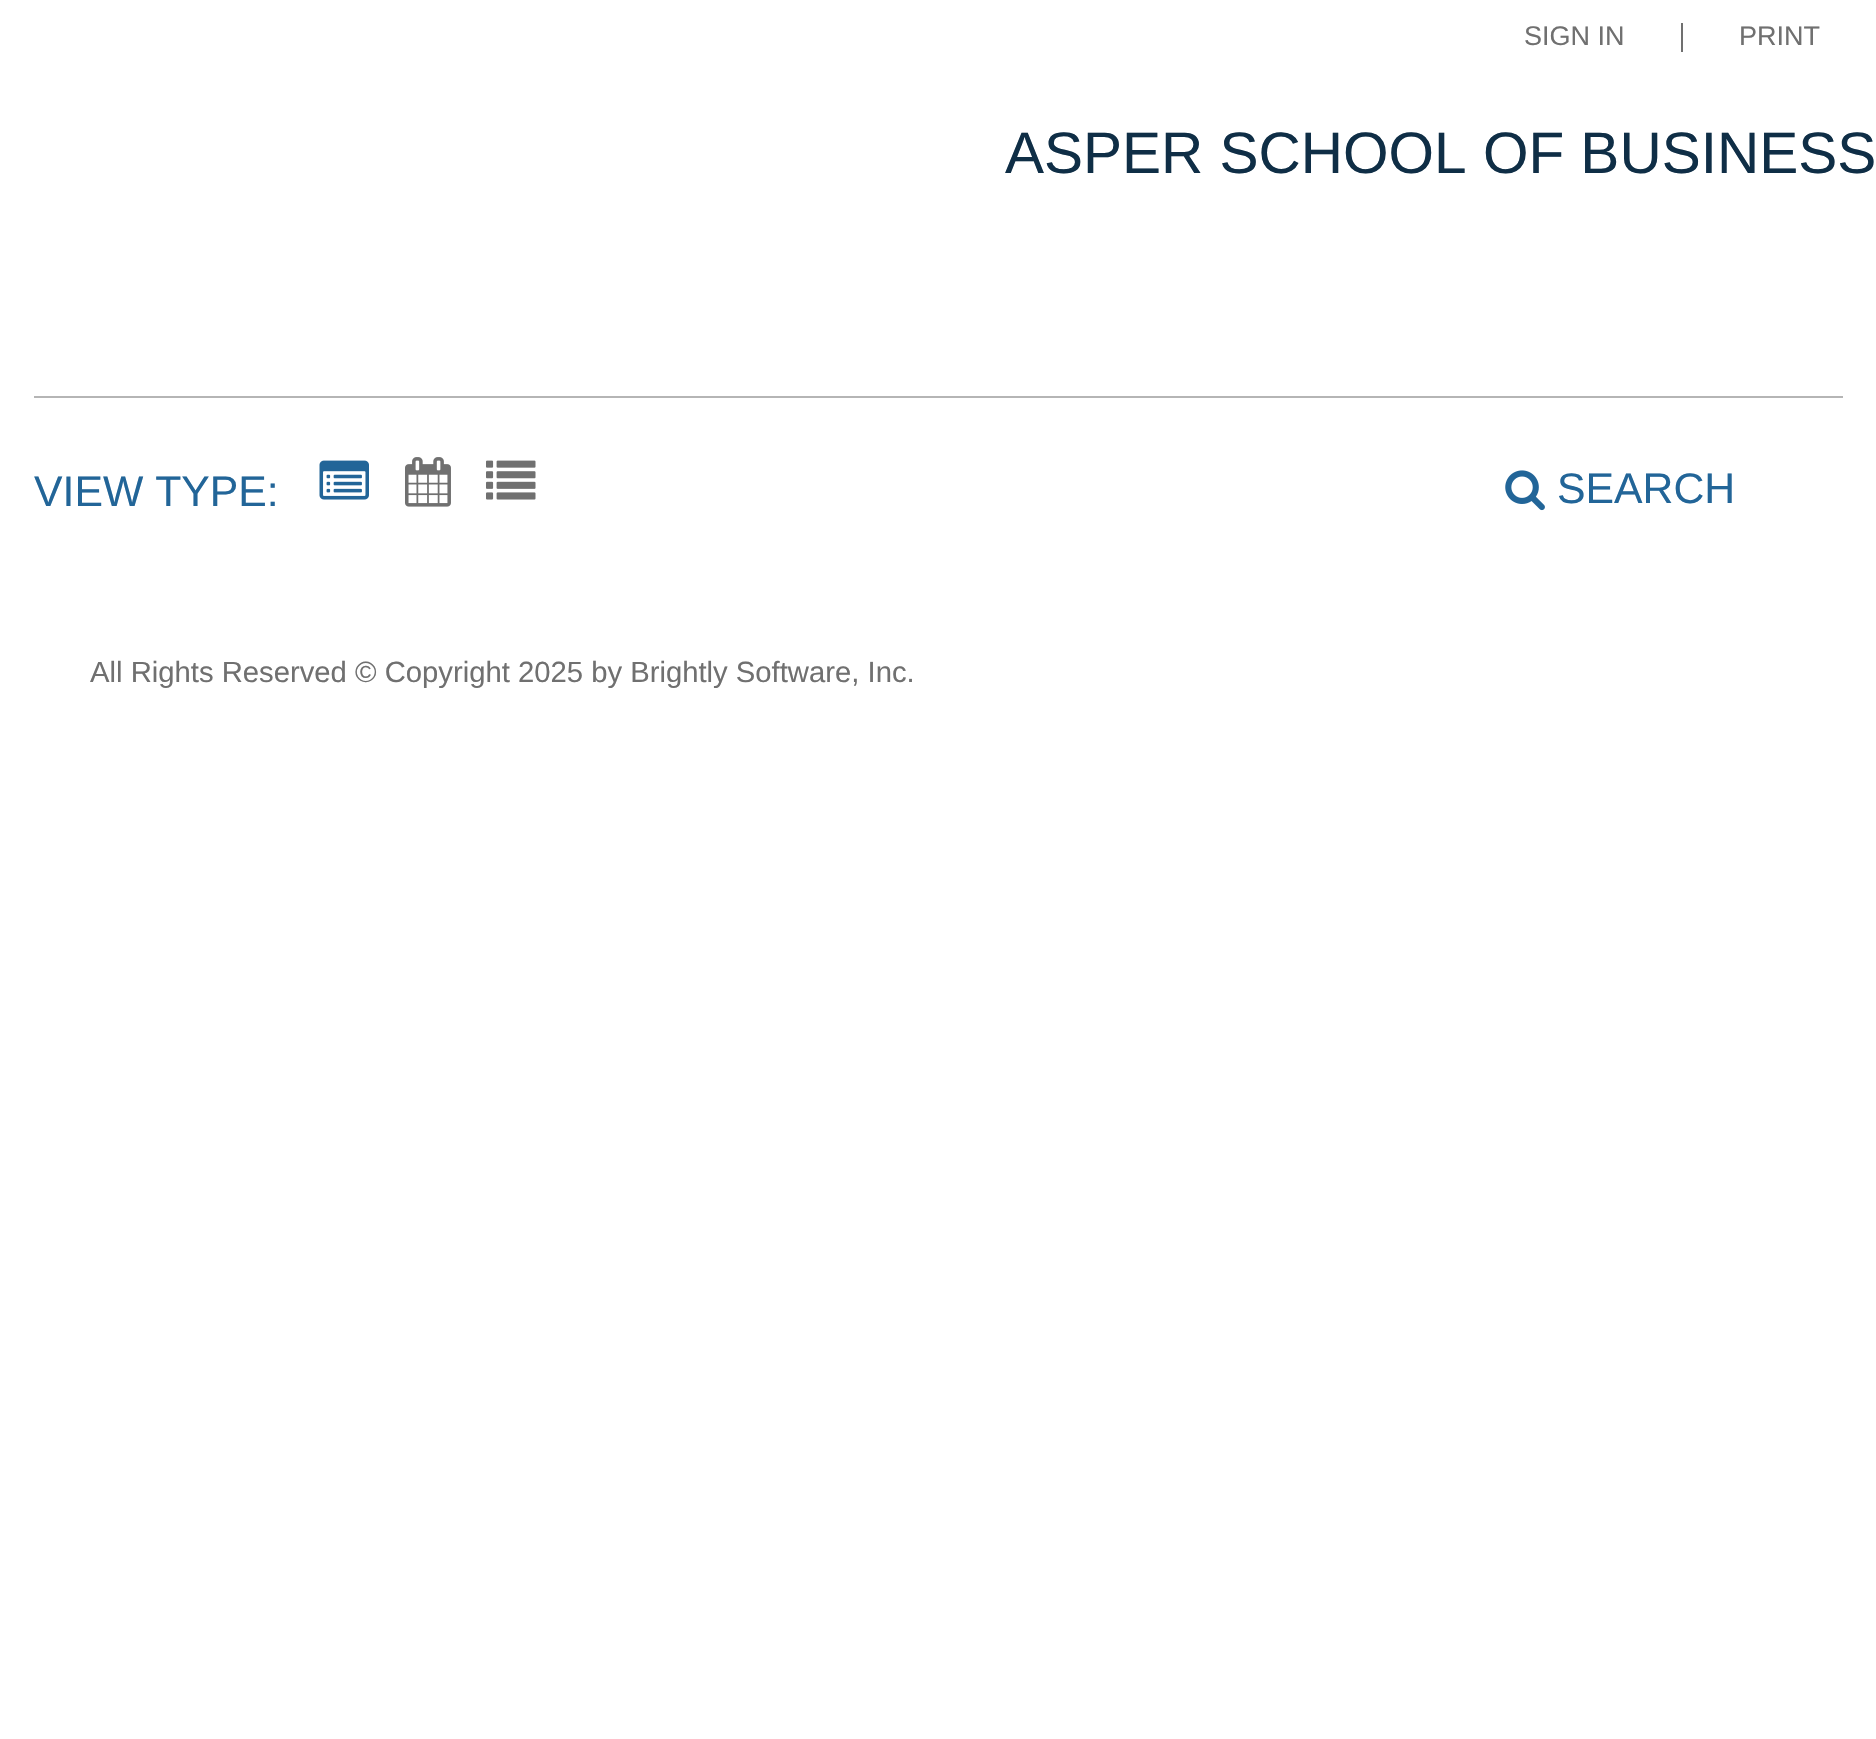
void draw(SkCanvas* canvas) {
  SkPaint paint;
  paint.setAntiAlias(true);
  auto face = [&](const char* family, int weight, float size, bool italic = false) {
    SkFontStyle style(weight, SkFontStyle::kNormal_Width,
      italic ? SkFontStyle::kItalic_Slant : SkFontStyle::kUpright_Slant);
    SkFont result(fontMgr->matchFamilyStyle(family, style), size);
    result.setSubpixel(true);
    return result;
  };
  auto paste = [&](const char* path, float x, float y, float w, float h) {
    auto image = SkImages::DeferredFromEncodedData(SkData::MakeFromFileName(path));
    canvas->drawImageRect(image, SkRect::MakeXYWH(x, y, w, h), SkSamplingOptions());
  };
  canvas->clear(0xffffffff);
  paint.setColor(0xff707070);
  canvas->drawRect(SkRect::MakeXYWH(1681, 23, 2, 29), paint);
  paint.setColor(0xffb5b5b5);
  canvas->drawRect(SkRect::MakeXYWH(34, 396, 1809, 2), paint);
  paste("img/1.png", 319, 460, 50, 40);
  paste("img/2.png", 405, 457, 46, 50);
  paste("img/3.png", 486, 460, 50, 40);
  paste("img/4.png", 1505, 470, 40, 41);
  auto f0 = face("Liberation Sans", 400, 27);
  paint.setColor(0xff707070);
  canvas->drawString("SIGN IN", 1524, 45, f0, paint);
  canvas->drawString("PRINT", 1739, 45, f0, paint);
  auto f1 = face("Liberation Sans", 400, 58.5f);
  paint.setColor(0xff0f2e46);
  canvas->drawString("ASPER SCHOOL OF BUSINESS", 1005, 173, f1, paint);
  auto f2 = face("Liberation Sans", 400, 42.75f);
  paint.setColor(0xff226598);
  canvas->drawString("VIEW TYPE:", 34, 506, f2, paint);
  canvas->drawString("SEARCH", 1557, 503, f2, paint);
  auto f3 = face("Liberation Sans", 400, 29.25f);
  paint.setColor(0xff707070);
  canvas->drawString("All Rights Reserved © Copyright 2025 by Brightly Software, Inc.", 90, 682, f3, paint);
}
